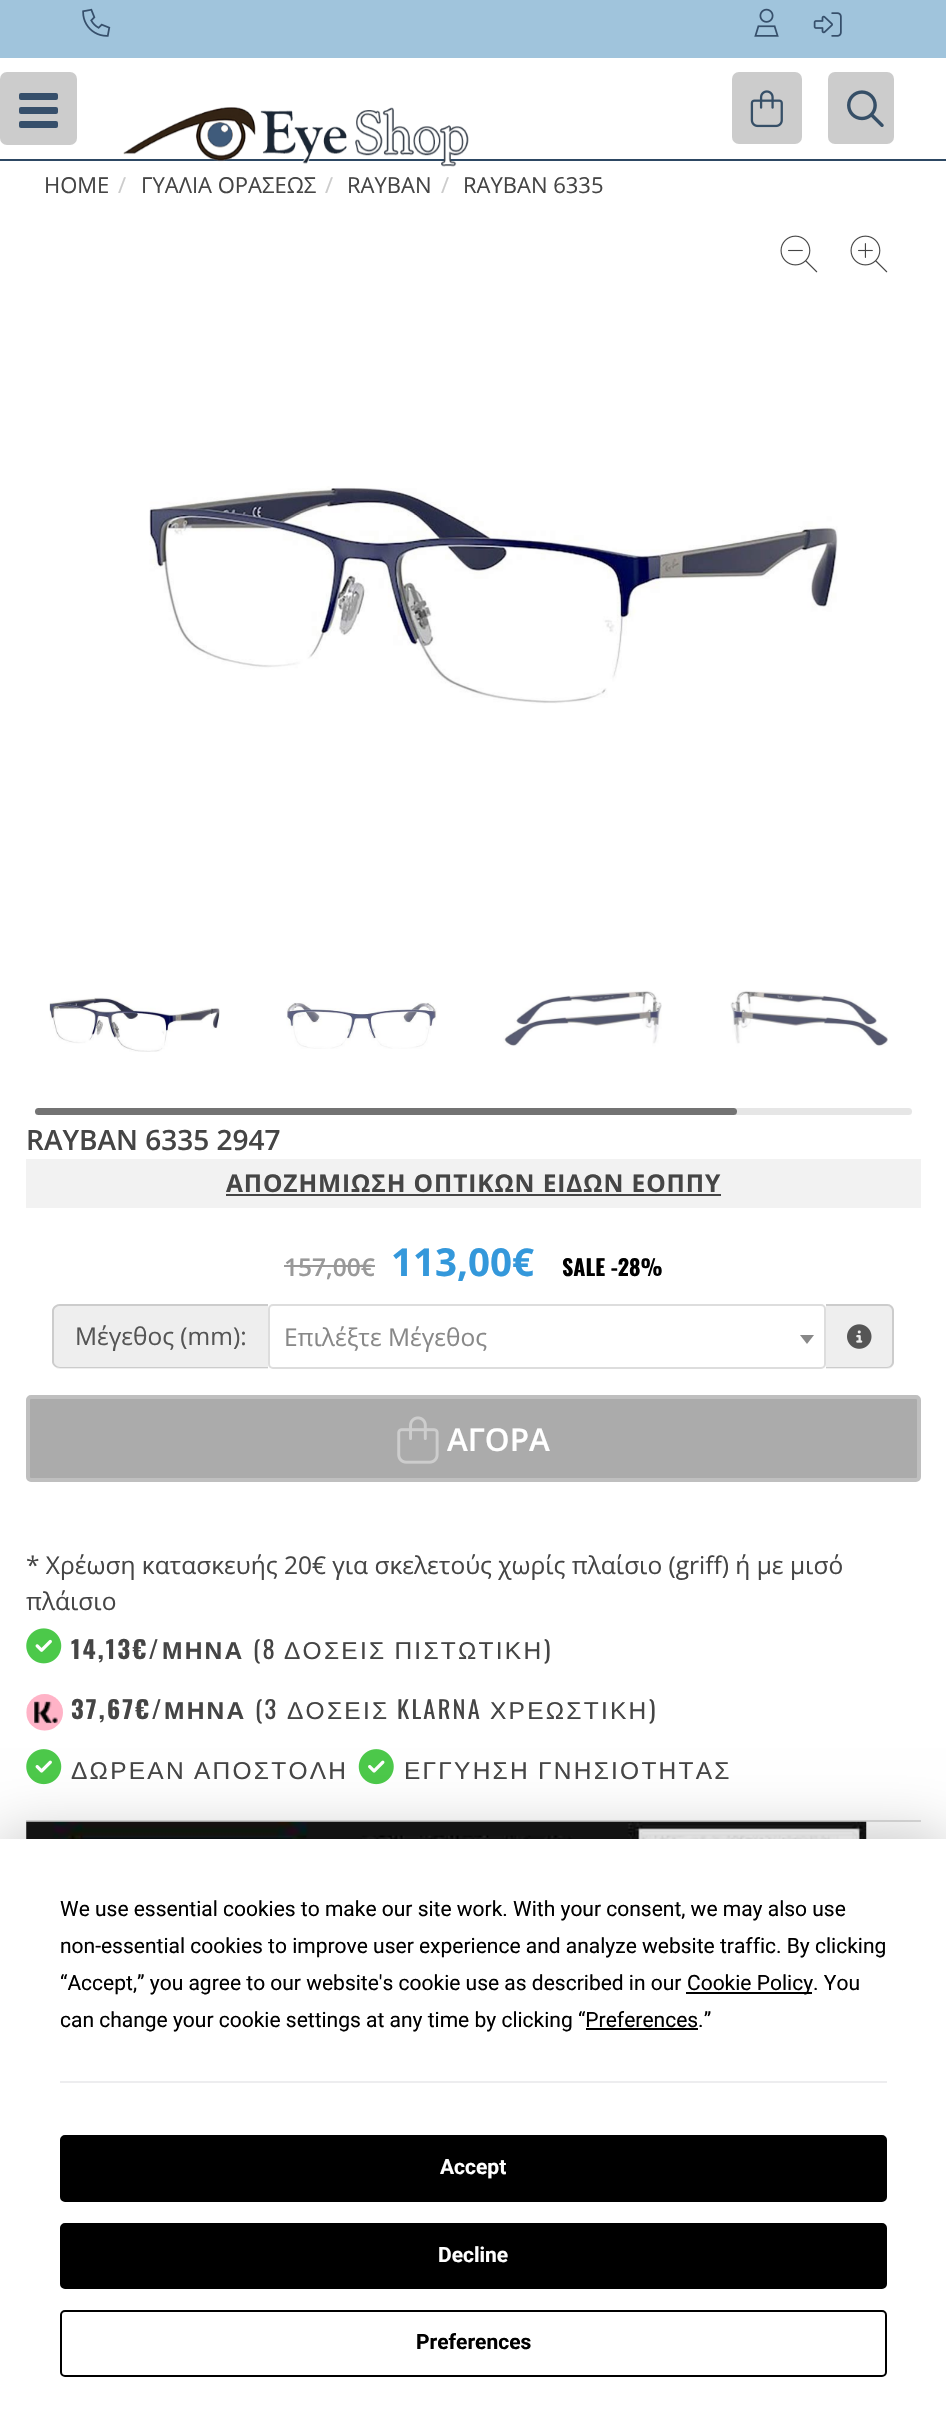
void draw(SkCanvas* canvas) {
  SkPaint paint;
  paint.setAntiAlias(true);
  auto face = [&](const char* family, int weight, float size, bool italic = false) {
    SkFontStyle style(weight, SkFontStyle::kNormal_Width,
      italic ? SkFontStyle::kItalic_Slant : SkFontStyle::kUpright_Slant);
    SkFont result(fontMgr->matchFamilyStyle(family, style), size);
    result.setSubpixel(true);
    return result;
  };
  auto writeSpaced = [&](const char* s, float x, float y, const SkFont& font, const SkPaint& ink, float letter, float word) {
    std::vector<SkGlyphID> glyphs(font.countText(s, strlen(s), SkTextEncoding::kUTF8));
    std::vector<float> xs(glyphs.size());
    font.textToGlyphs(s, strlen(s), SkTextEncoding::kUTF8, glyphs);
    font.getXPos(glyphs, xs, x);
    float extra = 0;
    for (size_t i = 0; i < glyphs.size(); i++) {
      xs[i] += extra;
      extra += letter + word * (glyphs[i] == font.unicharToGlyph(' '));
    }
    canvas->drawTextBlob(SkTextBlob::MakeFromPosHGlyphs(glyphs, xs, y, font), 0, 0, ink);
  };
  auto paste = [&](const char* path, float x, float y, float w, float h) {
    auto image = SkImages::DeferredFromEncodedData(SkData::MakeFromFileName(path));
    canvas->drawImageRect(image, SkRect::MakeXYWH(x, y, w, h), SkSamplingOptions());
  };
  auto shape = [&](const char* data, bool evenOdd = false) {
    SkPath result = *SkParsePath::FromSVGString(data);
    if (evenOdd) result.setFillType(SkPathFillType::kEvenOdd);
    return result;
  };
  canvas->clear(0xffffffff);
  paint.setColor(0xff2d4863);
  canvas->drawRect(SkRect::MakeXYWH(0, 159, 946, 2), paint);
  paint.setColor(0xffa0c4dc);
  canvas->drawRect(SkRect::MakeXYWH(0, 0, 946, 58), paint);
  paste("img/1.png", 82, 8, 29, 29);
  paste("img/2.png", 754, 8, 25, 29);
  paste("img/3.png", 813, 12, 29, 25);
  paint.setColor(0xffcccccc);
  canvas->drawRoundRect(SkRect::MakeXYWH(0, 72, 77, 73), 7, 7, paint);
  paint.setColor(0xff364f6b);
  canvas->drawRoundRect(SkRect::MakeXYWH(19, 93, 39, 7), 2, 2, paint);
  canvas->drawRoundRect(SkRect::MakeXYWH(19, 107, 39, 7), 2, 2, paint);
  canvas->drawRoundRect(SkRect::MakeXYWH(19, 121, 39, 7), 2, 2, paint);
  paste("img/4.png", 123, 107, 346, 60);
  paint.setColor(0xffcccccc);
  canvas->drawRoundRect(SkRect::MakeXYWH(732, 72, 70, 72), 7, 7, paint);
  paste("img/5.png", 750, 90, 33, 38);
  canvas->drawRoundRect(SkRect::MakeXYWH(828, 72, 66, 72), 7, 7, paint);
  paste("img/6.png", 847, 90, 37, 37);
  paste("img/7.png", 780, 235, 38, 38);
  paste("img/8.png", 850, 235, 38, 38);
  paste("img/9.png", 149, 486, 689, 218);
  paste("img/10.png", 49, 997, 171, 55);
  paste("img/11.png", 286, 1002, 152, 47);
  paste("img/12.png", 503, 990, 159, 57);
  paste("img/13.png", 730, 990, 158, 57);
  paint.setColor(0xffe6e6e6);
  canvas->drawRoundRect(SkRect::MakeXYWH(35, 1108, 877, 7), 3.5f, 3.5f, paint);
  paint.setColor(0x80000000);
  canvas->drawRoundRect(SkRect::MakeXYWH(35, 1108, 702, 7), 3.5f, 3.5f, paint);
  {
    const struct { float x, y, w, h; SkColor color; } items[] = {
      {26, 1159, 895, 49, 0xfff2f2f2},
      {226, 1194, 495, 2, 0xff454545},
      {284, 1265, 91, 2, 0xff999999},
      {26, 1820, 895, 2, 0xffdddddd},
    };
    for (auto [x, y, w, h, color] : items) {
      paint.setColor(color);
      canvas->drawRect(SkRect::MakeXYWH(x, y, w, h), paint);
    }
  }
  paint.setColor(0xffeeeeee);
  canvas->drawPath(shape("M60 1304H268V1369H60C56 1369 53 1366 53 1362V1311C53 1307 56 1304 60 1304Z"), paint);
  paint.setColor(0xffcccccc);
  canvas->drawPath(shape("M60 1304H268V1368H60C56 1368 52 1365 52 1362V1311C52 1307 56 1304 60 1304ZM60 1306H268V1367H60C57 1367 54 1364 54 1362V1311C54 1308 57 1306 60 1306Z", true), paint);
  paint.setStroke(true);
  paint.setStrokeWidth(2);
  paint.setColor(0xffdddddd);
  canvas->drawRoundRect(SkRect::MakeXYWH(269, 1305, 556, 63), 4, 4, paint);
  paint.setStroke(false);
  paint.setColor(0xff888888);
  canvas->drawPath(shape("M800 1335H814L807 1344Z"), paint);
  paint.setColor(0xffeeeeee);
  canvas->drawPath(shape("M826 1304H887C891 1304 894 1307 894 1311V1362C894 1366 891 1369 887 1369H826Z"), paint);
  paint.setColor(0xffcccccc);
  canvas->drawPath(shape("M826 1304H887C891 1304 894 1307 894 1311V1362C894 1365 891 1368 887 1368H826ZM826 1306H887C890 1306 892 1308 892 1311V1362C892 1364 890 1367 887 1367H826Z", true), paint);
  paste("img/14.png", 847, 1324, 25, 25);
  paint.setColor(0xffababab);
  canvas->drawRoundRect(SkRect::MakeXYWH(28, 1397, 891, 83), 3, 3, paint);
  paint.setStroke(true);
  paint.setStrokeWidth(4);
  paint.setColor(0xffbfbfbf);
  canvas->drawRoundRect(SkRect::MakeXYWH(28, 1397, 891, 83), 3, 3, paint);
  paste("img/15.png", 397, 1416, 42, 48);
  paste("img/16.png", 26, 1628, 36, 36);
  paste("img/17.png", 26, 1694, 37, 37);
  paste("img/18.png", 26, 1749, 36, 36);
  paste("img/19.png", 358, 1749, 36, 36);
  paste("img/20.png", 26, 1821, 841, 18);
  paint.setStroke(false);
  paint.setColor(0x40000000);
  paint.setMaskFilter(SkMaskFilter::MakeBlur(kNormal_SkBlurStyle, 30.5f));
  canvas->drawRect(SkRect::MakeXYWH(0, 1839, 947, 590), paint);
  paint.setMaskFilter(nullptr);
  {
    const struct { float x, y, w, h; SkColor color; } items[] = {
      {0, 1839, 946, 589, 0xffffffff},
      {686, 1992, 126, 2, 0xff000000},
      {586, 2028, 112, 2, 0xff000000},
      {60, 2081, 827, 2, 0xffededef},
    };
    for (auto [x, y, w, h, color] : items) {
      paint.setColor(color);
      canvas->drawRect(SkRect::MakeXYWH(x, y, w, h), paint);
    }
  }
  paint.setColor(0xff000000);
  canvas->drawRoundRect(SkRect::MakeXYWH(61, 2136, 825, 65), 4, 4, paint);
  paint.setStroke(true);
  paint.setStrokeWidth(2);
  canvas->drawRoundRect(SkRect::MakeXYWH(61, 2136, 825, 65), 4, 4, paint);
  paint.setStroke(false);
  canvas->drawRoundRect(SkRect::MakeXYWH(61, 2224, 825, 64), 4, 4, paint);
  paint.setStroke(true);
  canvas->drawRoundRect(SkRect::MakeXYWH(61, 2224, 825, 64), 4, 4, paint);
  canvas->drawRoundRect(SkRect::MakeXYWH(61, 2311, 825, 65), 4, 4, paint);
  auto f0 = face("Open Sans", 400, 22);
  paint.setStroke(false);
  paint.setColor(0xff454545);
  canvas->drawString("HOME", 44, 193, f0, paint);
  paint.setColor(0xffcccccc);
  canvas->drawString("/", 118, 193, f0, paint);
  paint.setColor(0xff454545);
  canvas->drawString("ΓΥΑΛΙΑ ΟΡΑΣΕΩΣ", 141, 193, f0, paint);
  paint.setColor(0xffcccccc);
  canvas->drawString("/", 325, 193, f0, paint);
  paint.setColor(0xff454545);
  canvas->drawString("RAYBAN", 347, 193, f0, paint);
  paint.setColor(0xffcccccc);
  canvas->drawString("/", 441, 193, f0, paint);
  paint.setColor(0xff454545);
  canvas->drawString("RAYBAN 6335", 463, 193, f0, paint);
  auto f1 = face("Open Sans", 600, 28);
  canvas->drawString("RAYBAN 6335 2947", 26, 1150, f1, paint);
  auto f2 = face("Open Sans", 700, 24.5f);
  writeSpaced("ΑΠΟΖΗΜΙΩΣΗ ΟΠΤΙΚΩΝ ΕΙΔΩΝ ΕΟΠΠΥ", 226, 1192, f2, paint, 0.9f, 0);
  auto f3 = face("Open Sans", 600, 24.5f);
  paint.setColor(0xff999999);
  canvas->drawString("157,00€", 284, 1276, f3, paint);
  auto f4 = face("Open Sans", 700, 38.5f);
  paint.setColor(0xff3498db);
  canvas->drawString("113,00€", 391, 1276, f4, paint);
  auto f5 = face("Oswald", 700, 22);
  paint.setColor(0xff000000);
  canvas->drawString("SALE -28%", 562, 1276, f5, paint);
  auto f6 = face("Open Sans", 400, 24.5f);
  paint.setColor(0xff555555);
  canvas->drawString("Μέγεθος (mm):", 75, 1345, f6, paint);
  paint.setColor(0xff888888);
  canvas->drawString("Επιλέξτε Μέγεθος", 284, 1346, f6, paint);
  auto f7 = face("Open Sans", 600, 31.5f);
  paint.setColor(0xffffffff);
  canvas->drawString("ΑΓΟΡΑ", 447, 1451, f7, paint);
  paint.setColor(0xff454545);
  canvas->drawString("* Χρέωση κατασκευής 20€ για σκελετούς χωρίς πλαίσιο (griff) ή με μισό", 26, 1574, f6, paint);
  canvas->drawString("πλάισιο", 26, 1610, f6, paint);
  auto f8 = face("Oswald", 700, 24.5f);
  writeSpaced("14,13€/", 71, 1659, f8, paint, 2.25f, 0);
  auto f9 = face("Liberation Sans", 700, 24.5f);
  writeSpaced("ΜΗΝΑ", 162, 1659, f9, paint, 2.25f, 0);
  auto f10 = face("Oswald", 400, 24.5f);
  writeSpaced("(8", 253, 1659, f10, paint, 2.25f, 0);
  auto f11 = face("Liberation Sans", 400, 24.5f);
  writeSpaced("ΔΟΣΕΙΣ ΠΙΣΤΩΤΙΚΗ", 284, 1659, f11, paint, 2.25f, -1);
  writeSpaced(")", 544, 1659, f10, paint, 2.25f, 0);
  writeSpaced("37,67€/", 71, 1719, f8, paint, 2.25f, 0);
  writeSpaced("ΜΗΝΑ", 164, 1719, f9, paint, 2.25f, 0);
  writeSpaced("(3", 255, 1719, f10, paint, 2.25f, 0);
  writeSpaced("ΔΟΣΕΙΣ", 287, 1719, f11, paint, 2.25f, 0);
  writeSpaced("KLARNA", 397, 1719, f10, paint, 2.25f, 0);
  writeSpaced("ΧΡΕΩΣΤΙΚΗ", 490, 1719, f11, paint, 2.25f, 0);
  writeSpaced(")", 649, 1719, f10, paint, 2.25f, 0);
  writeSpaced("ΔΩΡΕΑΝ ΑΠΟΣΤΟΛΗ", 71, 1779, f11, paint, 2.25f, -1);
  writeSpaced("ΕΓΓΥΗΣΗ ΓΝΗΣΙΟΤΗΤΑΣ", 404, 1779, f11, paint, 2.25f, -1);
  auto f12 = face("Roboto", 400, 21);
  paint.setColor(0xff000000);
  {
    const struct { const char* s; float x, y; } items[] = {
      {"We use essential cookies to make our site work. With your consent, we may also use", 60, 1916},
      {"non-essential cookies to improve user experience and analyze website traffic. By clicking", 60, 1953},
      {"“Accept,” you agree to our website's cookie use as described in our", 60, 1990},
      {"Cookie Policy. You", 687, 1990},
      {"can change your cookie settings at any time by clicking “Preferences.”", 60, 2027},
    };
    for (auto [s, x, y] : items) {
      canvas->drawString(s, x, y, f12, paint);
    }
  }
  auto f13 = face("Roboto", 700, 21);
  paint.setColor(0xffffffff);
  canvas->drawString("Accept", 440, 2174, f13, paint);
  canvas->drawString("Decline", 438, 2262, f13, paint);
  paint.setColor(0xff000000);
  canvas->drawString("Preferences", 416, 2349, f13, paint);
}
